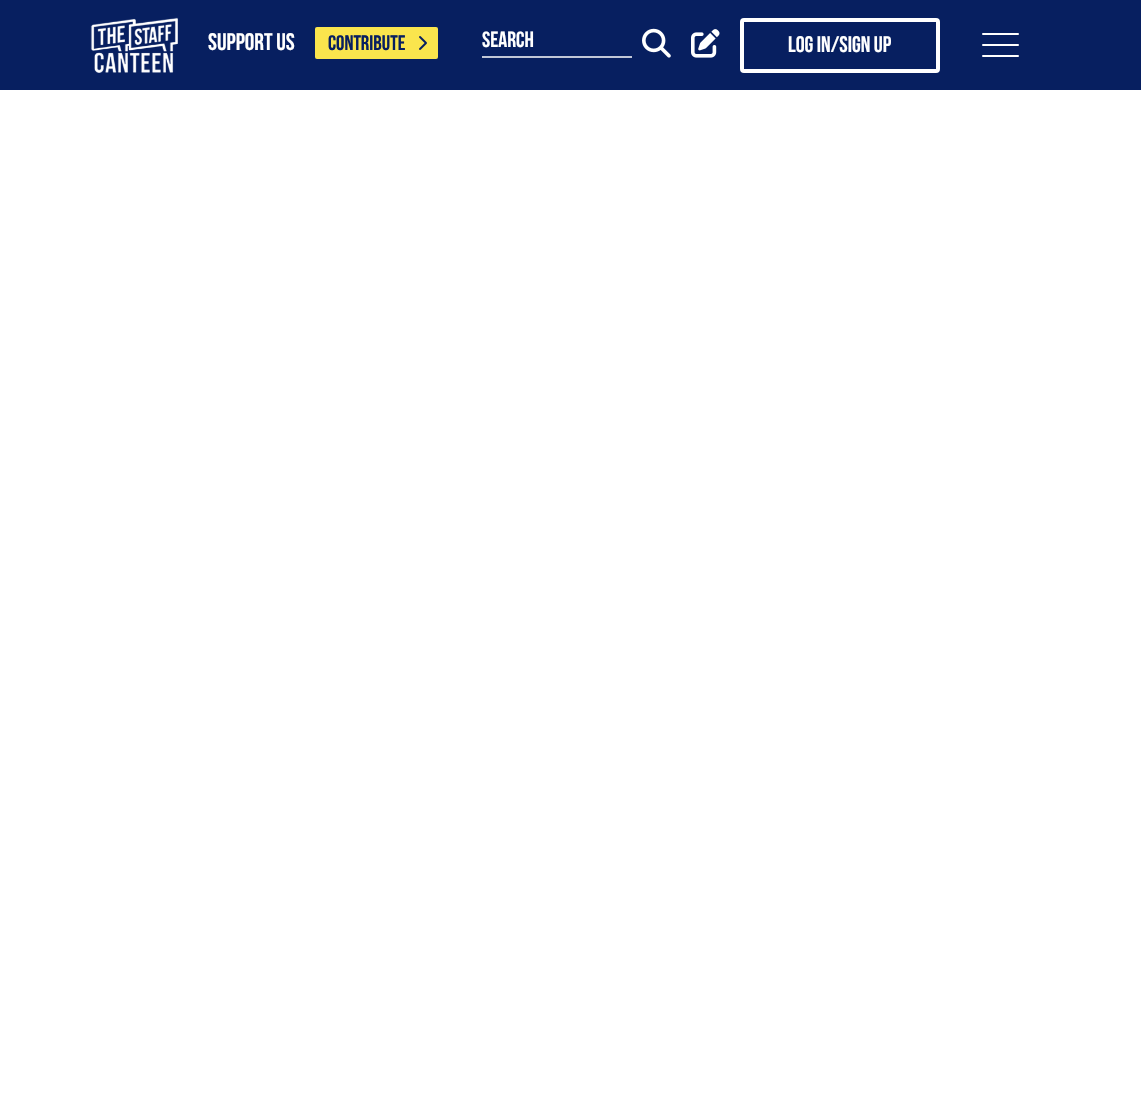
void draw(SkCanvas* canvas) {
  SkPaint paint;
  paint.setAntiAlias(true);
  auto face = [&](const char* family, int weight, float size, bool italic = false) {
    SkFontStyle style(weight, SkFontStyle::kNormal_Width,
      italic ? SkFontStyle::kItalic_Slant : SkFontStyle::kUpright_Slant);
    SkFont result(fontMgr->matchFamilyStyle(family, style), size);
    result.setSubpixel(true);
    return result;
  };
  auto paste = [&](const char* path, float x, float y, float w, float h) {
    auto image = SkImages::DeferredFromEncodedData(SkData::MakeFromFileName(path));
    canvas->drawImageRect(image, SkRect::MakeXYWH(x, y, w, h), SkSamplingOptions());
  };
  canvas->clear(0xffffffff);
  paint.setColor(0xff071f60);
  canvas->drawRect(SkRect::MakeXYWH(0, 0, 1141, 90), paint);
  paste("img/1.png", 90, 17, 88, 56);
  paint.setColor(0xfffae54d);
  canvas->drawRoundRect(SkRect::MakeXYWH(315, 27, 123, 32), 2, 2, paint);
  paste("img/2.png", 419, 36, 8, 14);
  paint.setColor(0xffc1c7d7);
  canvas->drawRect(SkRect::MakeXYWH(482, 56, 150, 2), paint);
  paste("img/3.png", 642, 28, 29, 30);
  paste("img/4.png", 691, 29, 29, 29);
  paint.setStroke(true);
  paint.setStrokeWidth(4);
  paint.setColor(0xffffffff);
  canvas->drawRoundRect(SkRect::MakeXYWH(742, 20, 196, 51), 2, 2, paint);
  paint.setStroke(false);
  canvas->drawRoundRect(SkRect::MakeXYWH(982, 33, 37, 2), 1, 1, paint);
  canvas->drawRoundRect(SkRect::MakeXYWH(982, 44, 37, 2), 1, 1, paint);
  canvas->drawRoundRect(SkRect::MakeXYWH(982, 55, 37, 2), 1, 1, paint);
  auto f0 = face("Bebas Neue", 700, 24);
  canvas->drawString("SUPPORT US", 208, 50, f0, paint);
  auto f1 = face("Bebas Neue", 700, 21);
  paint.setColor(0xff071f60);
  canvas->drawString("CONTRIBUTE", 328, 50, f1, paint);
  auto f2 = face("Bebas Neue", 700, 22);
  paint.setColor(0xffffffff);
  canvas->drawString("search", 482, 47, f2, paint);
  auto f3 = face("Bebas Neue", 700, 22.5f);
  canvas->drawString("Log in/Sign up", 788, 52, f3, paint);
}
